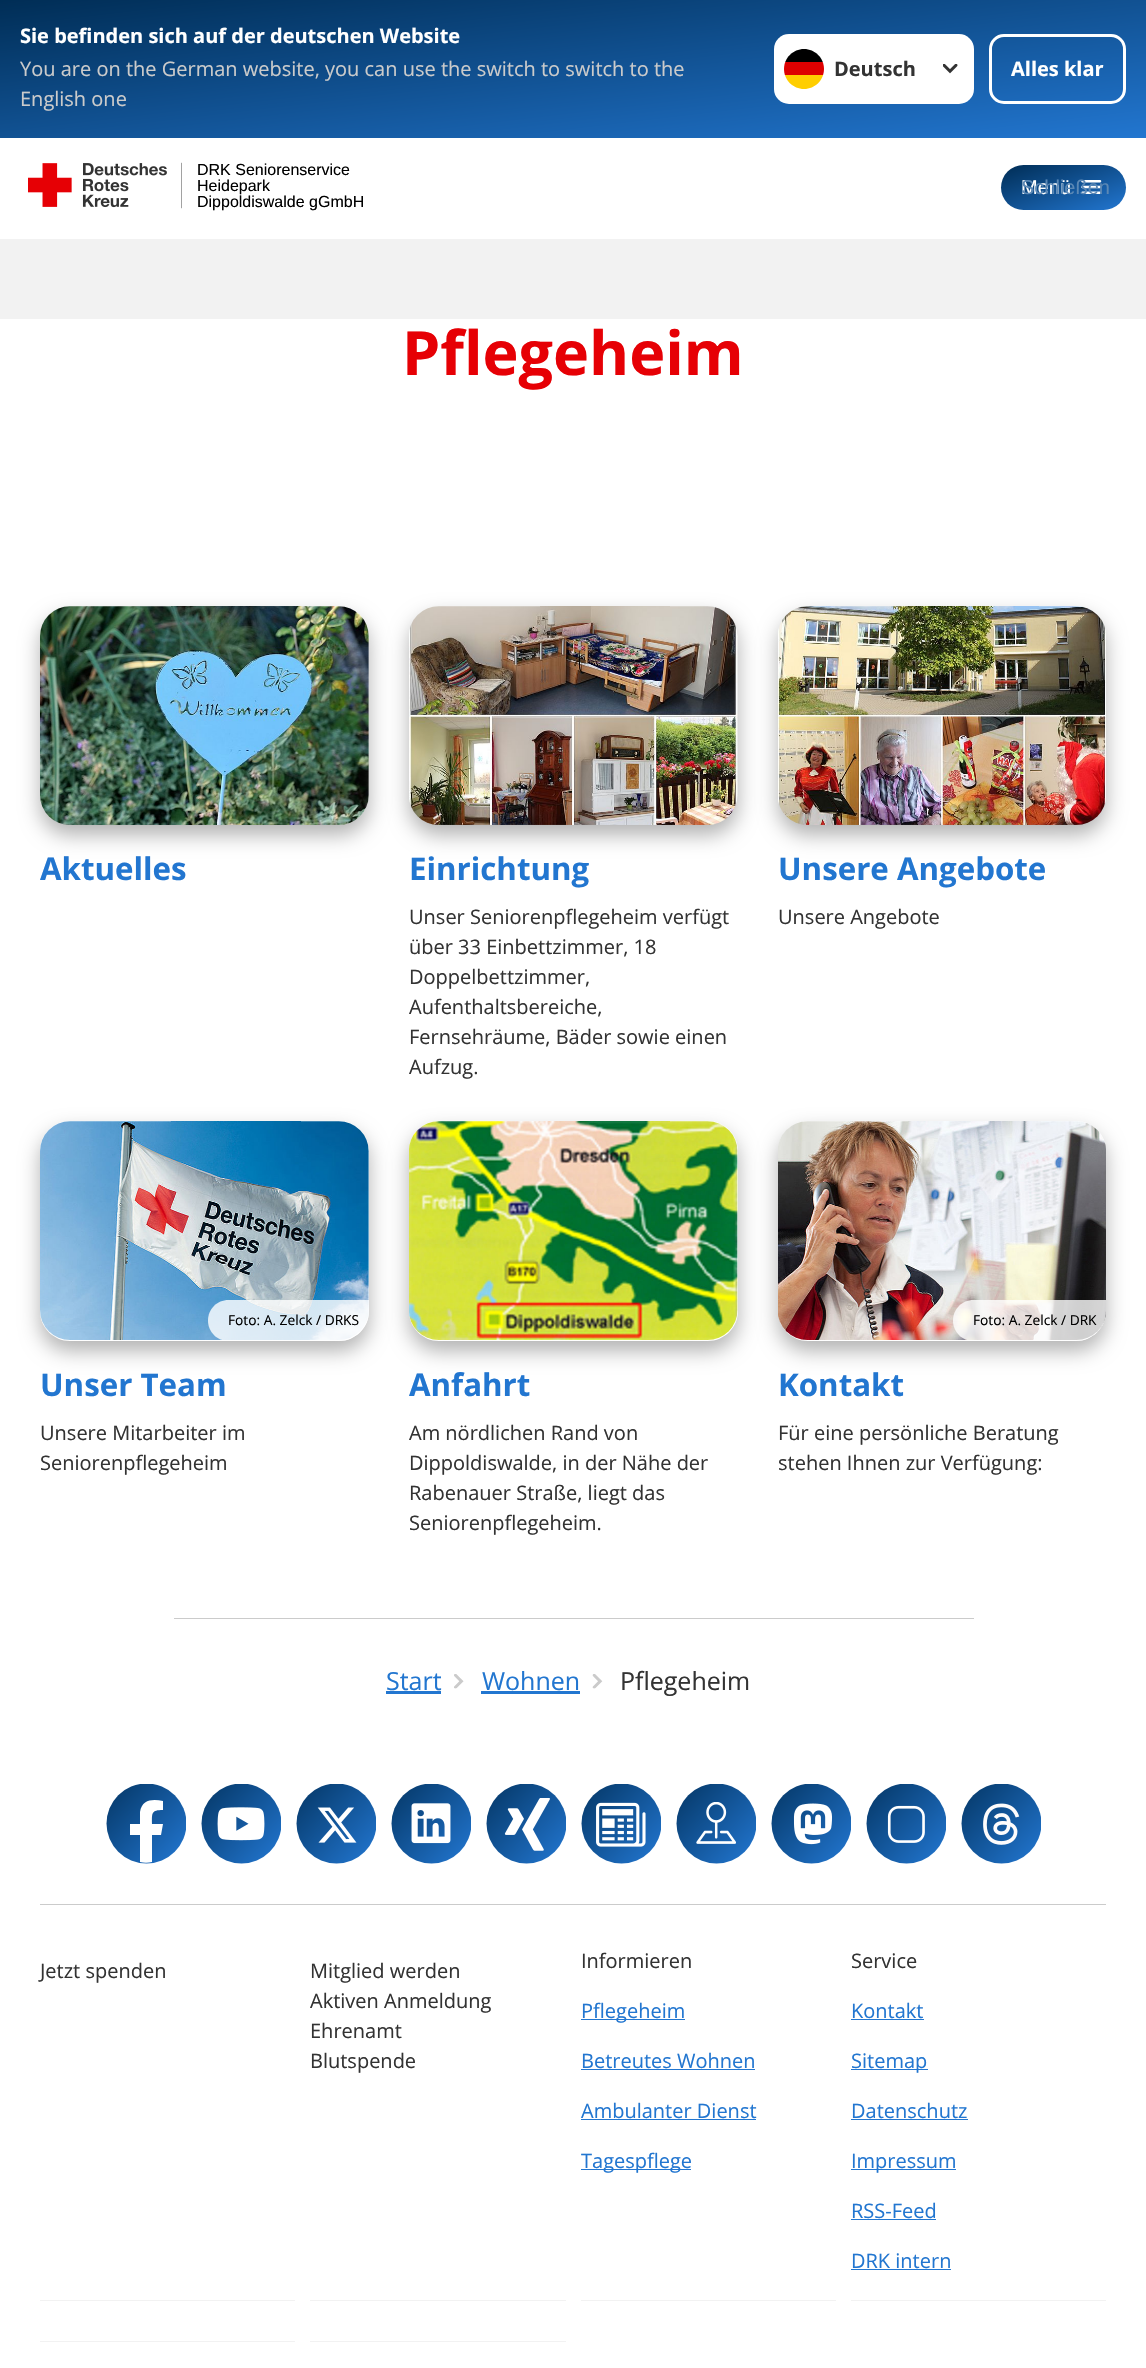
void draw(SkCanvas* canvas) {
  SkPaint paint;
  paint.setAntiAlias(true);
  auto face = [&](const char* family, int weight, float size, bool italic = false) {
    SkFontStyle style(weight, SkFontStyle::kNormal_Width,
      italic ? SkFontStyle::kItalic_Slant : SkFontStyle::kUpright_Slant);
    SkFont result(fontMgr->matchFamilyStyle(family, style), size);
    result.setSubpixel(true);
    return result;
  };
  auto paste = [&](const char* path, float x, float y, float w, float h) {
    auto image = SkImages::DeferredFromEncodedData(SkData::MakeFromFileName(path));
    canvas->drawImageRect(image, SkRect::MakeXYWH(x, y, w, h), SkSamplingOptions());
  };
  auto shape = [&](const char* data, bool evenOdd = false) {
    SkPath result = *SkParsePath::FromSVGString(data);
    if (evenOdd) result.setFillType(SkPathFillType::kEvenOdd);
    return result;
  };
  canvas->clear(0xffffffff);
  {
    const SkColor colors[] = {0xff002d55, 0xff2276d0};
    const float stops[] = {0, 1};
    const SkPoint ends[] = {{557, -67}, {589, 204}};
    paint.setShader(SkGradientShader::MakeLinear(ends, colors, stops, 2, SkTileMode::kClamp));
    paint.setAlpha(255);
  }
  canvas->drawRect(SkRect::MakeXYWH(0, 0, 1146, 138), paint);
  paint.setShader(nullptr);
  paint.setColor(0xffffffff);
  canvas->drawRoundRect(SkRect::MakeXYWH(774, 34, 200, 70), 15, 15, paint);
  canvas->save();
  canvas->clipPath(shape("M804 49C815 49 824 58 824 69C824 80 815 89 804 89C793 89 784 80 784 69C784 58 793 49 804 49Z"), true);
  {
    const struct { float x, y, w, h; SkColor color; } items[] = {
      {785, 75, 38, 14, 0xffffce00},
      {785, 49, 38, 13, 0xff000000},
      {784, 62, 40, 13, 0xffdd0000},
    };
    for (auto [x, y, w, h, color] : items) {
      paint.setColor(color);
      canvas->drawRect(SkRect::MakeXYWH(x, y, w, h), paint);
    }
  }
  canvas->restore();
  paste("img/1.png", 943, 64, 15, 10);
  paint.setStroke(true);
  paint.setStrokeWidth(3);
  paint.setColor(0xffffffff);
  canvas->drawRoundRect(SkRect::MakeXYWH(990.5f, 35.5f, 134, 67), 13.5f, 13.5f, paint);
  paste("img/2.png", 28, 162, 154, 47);
  paint.setStroke(false);
  {
    const SkColor colors[] = {0xff002d55, 0xff2276d0};
    const float stops[] = {0, 1};
    const SkPoint ends[] = {{1049, 148}, {1078, 227}};
    paint.setShader(SkGradientShader::MakeLinear(ends, colors, stops, 2, SkTileMode::kClamp));
    paint.setAlpha(255);
  }
  canvas->drawRoundRect(SkRect::MakeXYWH(1001, 165, 125, 45), 22.5f, 22.5f, paint);
  paste("img/3.png", 1081, 180, 21, 14);
  paint.setShader(nullptr);
  paint.setColor(0xfff2f2f2);
  canvas->drawRect(SkRect::MakeXYWH(0, 239, 1146, 80), paint);
  paint.setColor(0x4d000000);
  paint.setMaskFilter(SkMaskFilter::MakeBlur(kNormal_SkBlurStyle, 10));
  canvas->drawRoundRect(SkRect::MakeXYWH(40, 616, 329, 219), 30, 30, paint);
  paint.setMaskFilter(nullptr);
  paste("img/4.png", 40, 606, 329, 219);
  paint.setMaskFilter(SkMaskFilter::MakeBlur(kNormal_SkBlurStyle, 10));
  canvas->drawRoundRect(SkRect::MakeXYWH(409, 616, 329, 219), 30, 30, paint);
  paint.setMaskFilter(nullptr);
  paste("img/5.png", 409, 606, 329, 219);
  paint.setMaskFilter(SkMaskFilter::MakeBlur(kNormal_SkBlurStyle, 10));
  canvas->drawRoundRect(SkRect::MakeXYWH(778, 616, 328, 219), 30, 30, paint);
  paint.setMaskFilter(nullptr);
  paste("img/6.png", 778, 606, 328, 219);
  canvas->save();
  canvas->clipPath(shape("M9 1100H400V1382H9ZM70 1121H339C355.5 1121 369 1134.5 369 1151V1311C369 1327.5 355.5 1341 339 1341H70C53.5 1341 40 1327.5 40 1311V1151C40 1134.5 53.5 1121 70 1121Z", true), true);
  paint.setMaskFilter(SkMaskFilter::MakeBlur(kNormal_SkBlurStyle, 10));
  canvas->drawRoundRect(SkRect::MakeXYWH(40, 1131, 329, 220), 30, 30, paint);
  paint.setMaskFilter(nullptr);
  canvas->restore();
  paste("img/7.png", 40, 1121, 329, 219);
  paint.setColor(0xccffffff);
  canvas->drawPath(shape("M228.5 1300H369V1311C369 1327.5 355.5 1341 339 1341H228.5C217 1341 208 1332 208 1320.5C208 1309 217 1300 228.5 1300Z"), paint);
  canvas->save();
  canvas->clipPath(shape("M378 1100H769V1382H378ZM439 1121H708C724.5 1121 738 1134.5 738 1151V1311C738 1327.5 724.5 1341 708 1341H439C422.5 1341 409 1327.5 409 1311V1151C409 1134.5 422.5 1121 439 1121Z", true), true);
  paint.setColor(0x4d000000);
  paint.setMaskFilter(SkMaskFilter::MakeBlur(kNormal_SkBlurStyle, 10));
  canvas->drawRoundRect(SkRect::MakeXYWH(409, 1131, 329, 220), 30, 30, paint);
  paint.setMaskFilter(nullptr);
  canvas->restore();
  paste("img/8.png", 409, 1121, 329, 219);
  canvas->save();
  canvas->clipPath(shape("M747 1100H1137V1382H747ZM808 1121H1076C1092.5 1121 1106 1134.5 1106 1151V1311C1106 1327.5 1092.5 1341 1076 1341H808C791.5 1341 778 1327.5 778 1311V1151C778 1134.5 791.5 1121 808 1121Z", true), true);
  paint.setMaskFilter(SkMaskFilter::MakeBlur(kNormal_SkBlurStyle, 10));
  canvas->drawRoundRect(SkRect::MakeXYWH(778, 1131, 328, 220), 30, 30, paint);
  paint.setMaskFilter(nullptr);
  canvas->restore();
  paste("img/9.png", 778, 1121, 328, 219);
  paint.setColor(0xccffffff);
  canvas->drawPath(shape("M973.5 1300H1106V1311C1106 1327.5 1092.5 1341 1076 1341H973.5C962 1341 953 1332 953 1320.5C953 1309 962 1300 973.5 1300Z"), paint);
  paint.setColor(0xffcbcbcb);
  canvas->drawRect(SkRect::MakeXYWH(174, 1618, 800, 1), paint);
  paint.setColor(0xff2276d0);
  canvas->drawRect(SkRect::MakeXYWH(386, 1691, 55, 3), paint);
  paste("img/10.png", 454, 1674, 10, 15);
  canvas->drawRect(SkRect::MakeXYWH(481, 1691, 99, 3), paint);
  paste("img/11.png", 592, 1674, 11, 15);
  canvas->save();
  canvas->clipRect(SkRect::MakeXYWH(106, 1784, 80, 80));
  {
    const SkColor colors[] = {0xff002d55, 0xff2276d0};
    const float stops[] = {0, 1};
    const SkPoint ends[] = {{96, 1772}, {187, 1858}};
    paint.setShader(SkGradientShader::MakeLinear(ends, colors, stops, 2, SkTileMode::kClamp));
    paint.setAlpha(255);
  }
  canvas->drawCircle(146.5f, 1823.5f, 40, paint);
  canvas->restore();
  paint.setShader(nullptr);
  paint.setColor(0xffffffff);
  canvas->drawPath(shape("M140 1862V1835H130V1824H140V1812C142 1799 153 1799 163 1801V1810C151 1810 152 1813 152 1824H163L161 1835H152V1862C148 1863 144 1863 140 1862ZM117 1797C128 1785 146 1781 161 1787C146 1781 128 1785 117 1797Z", true), paint);
  canvas->save();
  canvas->clipRect(SkRect::MakeXYWH(201, 1784, 80, 80));
  {
    const SkColor colors[] = {0xff002d55, 0xff2276d0};
    const float stops[] = {0, 1};
    const SkPoint ends[] = {{191, 1772}, {282, 1858}};
    paint.setShader(SkGradientShader::MakeLinear(ends, colors, stops, 2, SkTileMode::kClamp));
    paint.setAlpha(255);
  }
  canvas->drawCircle(241.5f, 1823.5f, 40, paint);
  canvas->restore();
  paste("img/12.png", 217, 1807, 48, 34);
  canvas->save();
  canvas->clipRect(SkRect::MakeXYWH(296, 1784, 80, 80));
  {
    const SkColor colors[] = {0xff002d55, 0xff2276d0};
    const float stops[] = {0, 1};
    const SkPoint ends[] = {{286, 1772}, {377, 1858}};
    paint.setShader(SkGradientShader::MakeLinear(ends, colors, stops, 2, SkTileMode::kClamp));
    paint.setAlpha(255);
  }
  canvas->drawCircle(336.5f, 1823.5f, 40, paint);
  canvas->restore();
  paste("img/13.png", 317, 1807, 40, 36);
  canvas->save();
  canvas->clipRect(SkRect::MakeXYWH(391, 1784, 80, 80));
  {
    const SkColor colors[] = {0xff002d55, 0xff2276d0};
    const float stops[] = {0, 1};
    const SkPoint ends[] = {{381, 1772}, {472, 1858}};
    paint.setShader(SkGradientShader::MakeLinear(ends, colors, stops, 2, SkTileMode::kClamp));
    paint.setAlpha(255);
  }
  canvas->drawCircle(431.5f, 1823.5f, 40, paint);
  canvas->restore();
  paste("img/14.png", 411, 1803, 40, 41);
  canvas->save();
  canvas->clipRect(SkRect::MakeXYWH(486, 1784, 80, 80));
  {
    const SkColor colors[] = {0xff002d55, 0xff2276d0};
    const float stops[] = {0, 1};
    const SkPoint ends[] = {{476, 1772}, {567, 1858}};
    paint.setShader(SkGradientShader::MakeLinear(ends, colors, stops, 2, SkTileMode::kClamp));
    paint.setAlpha(255);
  }
  canvas->drawCircle(526.5f, 1823.5f, 40, paint);
  canvas->restore();
  paste("img/15.png", 504, 1798, 46, 53);
  canvas->save();
  canvas->clipRect(SkRect::MakeXYWH(581, 1784, 80, 80));
  {
    const SkColor colors[] = {0xff002d55, 0xff2276d0};
    const float stops[] = {0, 1};
    const SkPoint ends[] = {{571, 1772}, {662, 1858}};
    paint.setShader(SkGradientShader::MakeLinear(ends, colors, stops, 2, SkTileMode::kClamp));
    paint.setAlpha(255);
  }
  canvas->drawCircle(621.5f, 1823.5f, 40, paint);
  canvas->restore();
  paste("img/16.png", 596, 1802, 50, 45);
  canvas->save();
  canvas->clipRect(SkRect::MakeXYWH(676, 1784, 80, 80));
  {
    const SkColor colors[] = {0xff002d55, 0xff2276d0};
    const float stops[] = {0, 1};
    const SkPoint ends[] = {{666, 1772}, {757, 1858}};
    paint.setShader(SkGradientShader::MakeLinear(ends, colors, stops, 2, SkTileMode::kClamp));
    paint.setAlpha(255);
  }
  canvas->drawCircle(716.5f, 1823.5f, 40, paint);
  canvas->restore();
  paste("img/17.png", 696, 1802, 40, 42);
  canvas->save();
  canvas->clipRect(SkRect::MakeXYWH(771, 1784, 80, 80));
  {
    const SkColor colors[] = {0xff002d55, 0xff2276d0};
    const float stops[] = {0, 1};
    const SkPoint ends[] = {{761, 1772}, {852, 1858}};
    paint.setShader(SkGradientShader::MakeLinear(ends, colors, stops, 2, SkTileMode::kClamp));
    paint.setAlpha(255);
  }
  canvas->drawCircle(811.5f, 1823.5f, 40, paint);
  canvas->restore();
  paste("img/18.png", 793, 1803, 39, 42);
  canvas->save();
  canvas->clipRect(SkRect::MakeXYWH(866, 1784, 80, 80));
  {
    const SkColor colors[] = {0xff002d55, 0xff2276d0};
    const float stops[] = {0, 1};
    const SkPoint ends[] = {{856, 1772}, {947, 1858}};
    paint.setShader(SkGradientShader::MakeLinear(ends, colors, stops, 2, SkTileMode::kClamp));
    paint.setAlpha(255);
  }
  canvas->drawCircle(906.5f, 1823.5f, 40, paint);
  canvas->restore();
  paste("img/19.png", 887, 1805, 38, 38);
  canvas->save();
  canvas->clipRect(SkRect::MakeXYWH(961, 1784, 80, 80));
  {
    const SkColor colors[] = {0xff002d55, 0xff2276d0};
    const float stops[] = {0, 1};
    const SkPoint ends[] = {{951, 1772}, {1042, 1858}};
    paint.setShader(SkGradientShader::MakeLinear(ends, colors, stops, 2, SkTileMode::kClamp));
    paint.setAlpha(255);
  }
  canvas->drawCircle(1001.5f, 1823.5f, 40, paint);
  canvas->restore();
  paste("img/20.png", 983, 1803, 37, 42);
  paint.setShader(nullptr);
  {
    const struct { float x, y, w, h; SkColor color; } items[] = {
      {40, 1904, 1066, 1, 0xffcbcbcb},
      {40, 2300, 255, 1, 0xfff2f2f2},
      {310, 2300, 256, 1, 0xfff2f2f2},
      {581, 2300, 255, 1, 0xfff2f2f2},
      {581, 2019, 104, 1, 0xff2276d0},
      {581, 2069, 174, 1, 0xff2276d0},
      {581, 2119, 175, 1, 0xff2276d0},
      {581, 2169, 110, 1, 0xff2276d0},
      {851, 2300, 255, 1, 0xfff2f2f2},
      {851, 2019, 73, 1, 0xff2276d0},
      {851, 2069, 77, 1, 0xff2276d0},
      {851, 2119, 117, 1, 0xff2276d0},
      {851, 2169, 105, 1, 0xff2276d0},
      {851, 2219, 85, 1, 0xff2276d0},
      {851, 2269, 100, 1, 0xff2276d0},
      {40, 2341, 255, 1, 0xfff2f2f2},
      {310, 2341, 256, 1, 0xfff2f2f2},
    };
    for (auto [x, y, w, h, color] : items) {
      paint.setColor(color);
      canvas->drawRect(SkRect::MakeXYWH(x, y, w, h), paint);
    }
  }
  auto f0 = face("Open Sans", 700, 20);
  paint.setColor(0xffffffff);
  canvas->drawString("Sie befinden sich auf der deutschen Website", 20, 43, f0, paint);
  auto f1 = face("Open Sans", 400, 20);
  paint.setColor(0xffcbcbcb);
  canvas->drawString("You are on the German website, you can use the switch to switch to the", 20, 76, f1, paint);
  canvas->drawString("English one", 20, 106, f1, paint);
  paint.setColor(0xff333333);
  canvas->drawString("Deutsch", 834, 76, f0, paint);
  paint.setColor(0xffffffff);
  canvas->drawString("Alles klar", 1011, 76, f0, paint);
  auto f2 = face("Liberation Sans", 400, 16);
  paint.setColor(0xff000000);
  {
    const struct { const char* s; float x, y; } items[] = {
      {"DRK Seniorenservice", 197, 175},
      {"Heidepark", 197, 191},
      {"Dippoldiswalde gGmbH", 197, 207},
    };
    for (auto [s, x, y] : items) {
      canvas->drawString(s, x, y, f2, paint);
    }
  }
  auto f3 = face("Liberation Sans", 400, 20);
  paint.setColor(0xffffffff);
  canvas->drawString("Menü", 1021, 194, f3, paint);
  paint.setColor(0xff5b88b5);
  canvas->drawString("Schließen", 1021, 194, f3, paint);
  auto f4 = face("Open Sans", 700, 61);
  paint.setColor(0xffe60005);
  canvas->drawString("Pflegeheim", 402, 375, f4, paint);
  auto f5 = face("Open Sans", 700, 31.25f);
  paint.setColor(0xff2276d0);
  canvas->drawString("Aktuelles", 40, 880, f5, paint);
  canvas->drawString("Einrichtung", 409, 880, f5, paint);
  paint.setColor(0xff333333);
  {
    const struct { const char* s; float x, y; } items[] = {
      {"Unser Seniorenpflegeheim verfügt", 409, 924},
      {"über 33 Einbettzimmer, 18", 409, 954},
      {"Doppelbettzimmer,", 409, 984},
      {"Aufenthaltsbereiche,", 409, 1014},
      {"Fernsehräume, Bäder sowie einen", 409, 1044},
      {"Aufzug.", 409, 1074},
    };
    for (auto [s, x, y] : items) {
      canvas->drawString(s, x, y, f1, paint);
    }
  }
  paint.setColor(0xff2276d0);
  canvas->drawString("Unsere Angebote", 778, 880, f5, paint);
  paint.setColor(0xff333333);
  canvas->drawString("Unsere Angebote", 778, 924, f1, paint);
  auto f6 = face("Open Sans", 400, 13.75f);
  paint.setColor(0xff000000);
  canvas->drawString("Foto: A. Zelck / DRKS", 228, 1325, f6, paint);
  paint.setColor(0xff2276d0);
  canvas->drawString("Unser Team", 40, 1396, f5, paint);
  paint.setColor(0xff333333);
  canvas->drawString("Unsere Mitarbeiter im", 40, 1440, f1, paint);
  canvas->drawString("Seniorenpflegeheim", 40, 1470, f1, paint);
  paint.setColor(0xff2276d0);
  canvas->drawString("Anfahrt", 409, 1396, f5, paint);
  paint.setColor(0xff333333);
  {
    const struct { const char* s; float x, y; } items[] = {
      {"Am nördlichen Rand von", 409, 1440},
      {"Dippoldiswalde, in der Nähe der", 409, 1470},
      {"Rabenauer Straße, liegt das", 409, 1500},
      {"Seniorenpflegeheim.", 409, 1530},
    };
    for (auto [s, x, y] : items) {
      canvas->drawString(s, x, y, f1, paint);
    }
  }
  paint.setColor(0xff000000);
  canvas->drawString("Foto: A. Zelck / DRK", 973, 1325, f6, paint);
  paint.setColor(0xff2276d0);
  canvas->drawString("Kontakt", 778, 1396, f5, paint);
  paint.setColor(0xff333333);
  canvas->drawString("Für eine persönliche Beratung", 778, 1440, f1, paint);
  canvas->drawString("stehen Ihnen zur Verfügung:", 778, 1470, f1, paint);
  auto f7 = face("Open Sans", 400, 25);
  paint.setColor(0xff2276d0);
  canvas->drawString("Start", 386, 1690, f7, paint);
  canvas->drawString("Wohnen", 482, 1690, f7, paint);
  paint.setColor(0xff333333);
  canvas->drawString("Pflegeheim", 620, 1690, f7, paint);
  {
    const struct { const char* s; float x, y; } items[] = {
      {"Jetzt spenden", 40, 1978},
      {"Mitglied werden", 310, 1978},
      {"Aktiven Anmeldung", 310, 2008},
      {"Ehrenamt", 310, 2038},
      {"Blutspende", 310, 2068},
      {"Informieren", 581, 1968},
    };
    for (auto [s, x, y] : items) {
      canvas->drawString(s, x, y, f1, paint);
    }
  }
  paint.setColor(0xff2276d0);
  {
    const struct { const char* s; float x, y; } items[] = {
      {"Pflegeheim", 581, 2018},
      {"Betreutes Wohnen", 581, 2068},
      {"Ambulanter Dienst", 581, 2118},
      {"Tagespflege", 581, 2168},
    };
    for (auto [s, x, y] : items) {
      canvas->drawString(s, x, y, f1, paint);
    }
  }
  paint.setColor(0xff333333);
  canvas->drawString("Service", 851, 1968, f1, paint);
  paint.setColor(0xff2276d0);
  {
    const struct { const char* s; float x, y; } items[] = {
      {"Kontakt", 851, 2018},
      {"Sitemap", 851, 2068},
      {"Datenschutz", 851, 2118},
      {"Impressum", 851, 2168},
      {"RSS-Feed", 851, 2218},
      {"DRK intern", 851, 2268},
    };
    for (auto [s, x, y] : items) {
      canvas->drawString(s, x, y, f1, paint);
    }
  }
}
